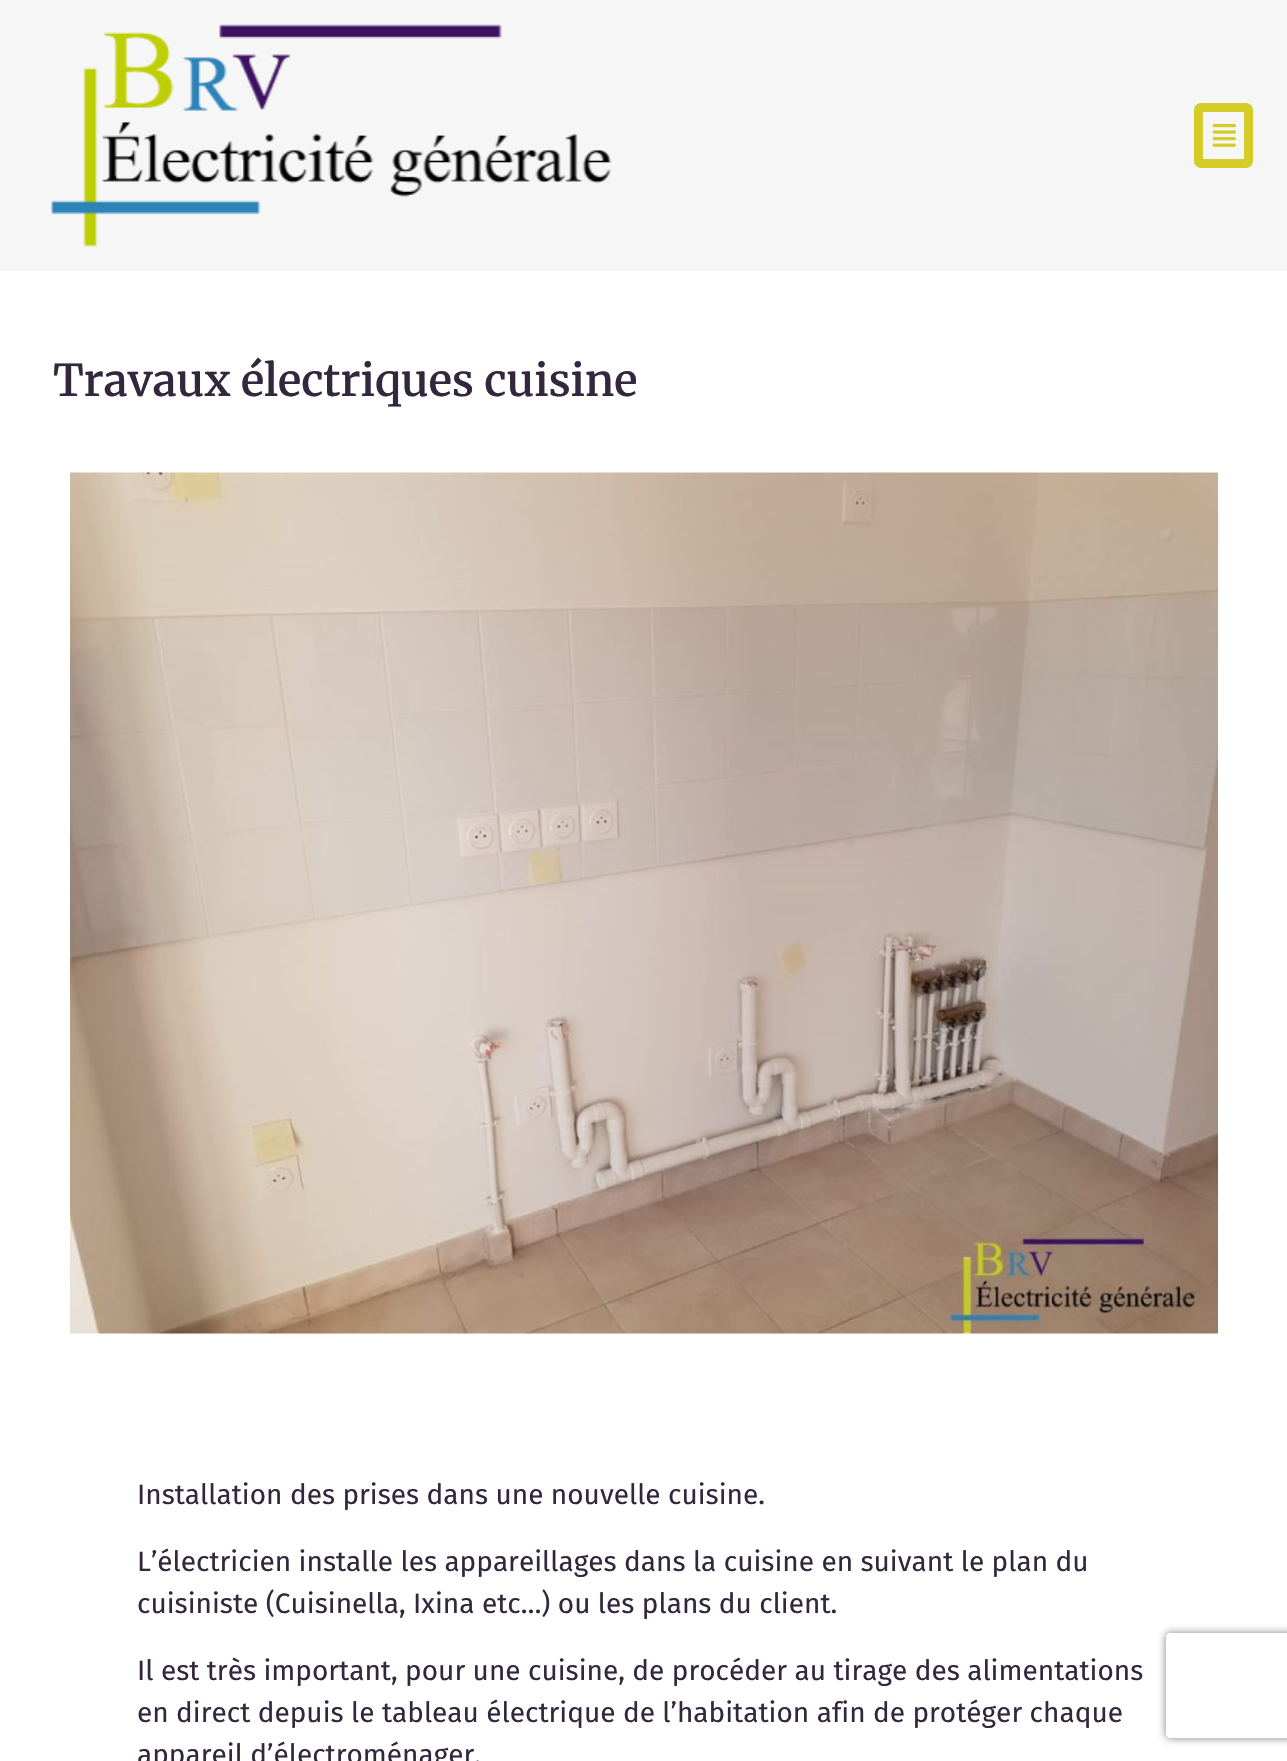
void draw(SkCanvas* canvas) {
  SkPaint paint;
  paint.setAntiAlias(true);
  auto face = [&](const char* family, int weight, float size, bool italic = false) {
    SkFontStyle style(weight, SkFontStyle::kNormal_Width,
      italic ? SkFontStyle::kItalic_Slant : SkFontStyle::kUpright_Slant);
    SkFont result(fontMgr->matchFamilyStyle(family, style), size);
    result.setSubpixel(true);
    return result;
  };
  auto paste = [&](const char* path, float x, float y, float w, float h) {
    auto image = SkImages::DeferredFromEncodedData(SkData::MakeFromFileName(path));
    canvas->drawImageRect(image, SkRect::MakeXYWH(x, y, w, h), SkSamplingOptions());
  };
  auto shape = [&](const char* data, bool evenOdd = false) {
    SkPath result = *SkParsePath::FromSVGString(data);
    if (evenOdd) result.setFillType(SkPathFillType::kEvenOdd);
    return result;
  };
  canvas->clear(0xffffffff);
  paint.setColor(0xfff6f6f6);
  canvas->drawRect(SkRect::MakeXYWH(0, 0, 1287, 271), paint);
  paste("img/1.png", 51, 24, 561, 223);
  paint.setStroke(true);
  paint.setStrokeWidth(9);
  paint.setColor(0xffd5cc29);
  canvas->drawRoundRect(SkRect::MakeXYWH(1198.5f, 107.5f, 50, 56), 2.5f, 2.5f, paint);
  paste("img/2.png", 1212, 123, 24, 24);
  paste("img/3.png", 70, 472, 1148, 862);
  canvas->save();
  canvas->clipPath(shape("M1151 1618H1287V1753H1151ZM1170 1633H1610C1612 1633 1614 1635 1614 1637V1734C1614 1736 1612 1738 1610 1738H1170C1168 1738 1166 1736 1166 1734V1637C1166 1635 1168 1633 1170 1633Z", true), true);
  paint.setStroke(false);
  paint.setColor(0xff808080);
  paint.setMaskFilter(SkMaskFilter::MakeBlur(kNormal_SkBlurStyle, 4.5f));
  canvas->drawRoundRect(SkRect::MakeXYWH(1166, 1633, 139, 105), 4, 4, paint);
  paint.setMaskFilter(nullptr);
  canvas->restore();
  auto f0 = face("Merriweather", 600, 43.75f);
  paint.setColor(0xff33273d);
  canvas->drawString("Travaux électriques cuisine", 53, 396, f0, paint);
  auto f1 = face("Fira Sans", 400, 28);
  {
    const struct { const char* s; float x, y; } items[] = {
      {"Installation des prises dans une nouvelle cuisine.", 137, 1504},
      {"L’électricien installe les appareillages dans la cuisine en suivant le plan du", 137, 1571},
      {"cuisiniste (Cuisinella, Ixina etc…) ou les plans du client.", 137, 1613},
      {"Il est très important, pour une cuisine, de procéder au tirage des alimentations", 137, 1680},
      {"en direct depuis le tableau électrique de l’habitation afin de protéger chaque", 137, 1722},
      {"appareil d’électroménager.", 137, 1764},
    };
    for (auto [s, x, y] : items) {
      canvas->drawString(s, x, y, f1, paint);
    }
  }
}
